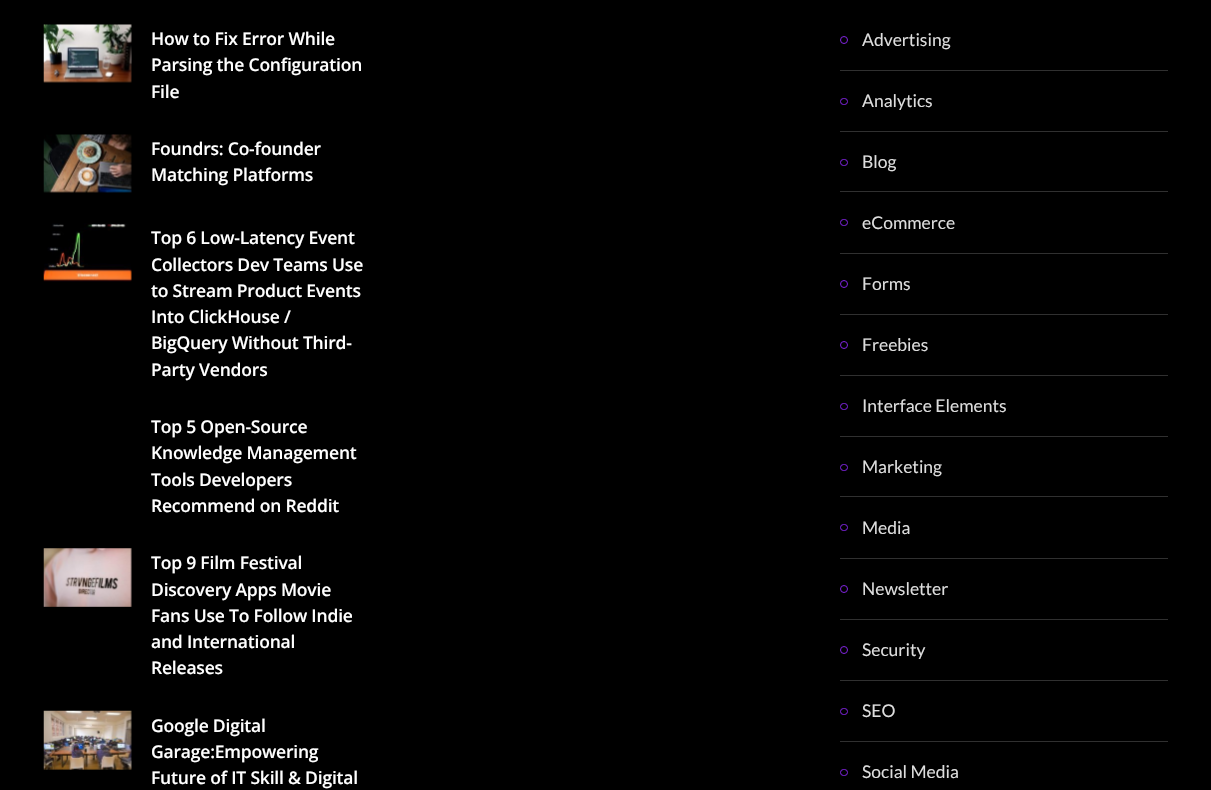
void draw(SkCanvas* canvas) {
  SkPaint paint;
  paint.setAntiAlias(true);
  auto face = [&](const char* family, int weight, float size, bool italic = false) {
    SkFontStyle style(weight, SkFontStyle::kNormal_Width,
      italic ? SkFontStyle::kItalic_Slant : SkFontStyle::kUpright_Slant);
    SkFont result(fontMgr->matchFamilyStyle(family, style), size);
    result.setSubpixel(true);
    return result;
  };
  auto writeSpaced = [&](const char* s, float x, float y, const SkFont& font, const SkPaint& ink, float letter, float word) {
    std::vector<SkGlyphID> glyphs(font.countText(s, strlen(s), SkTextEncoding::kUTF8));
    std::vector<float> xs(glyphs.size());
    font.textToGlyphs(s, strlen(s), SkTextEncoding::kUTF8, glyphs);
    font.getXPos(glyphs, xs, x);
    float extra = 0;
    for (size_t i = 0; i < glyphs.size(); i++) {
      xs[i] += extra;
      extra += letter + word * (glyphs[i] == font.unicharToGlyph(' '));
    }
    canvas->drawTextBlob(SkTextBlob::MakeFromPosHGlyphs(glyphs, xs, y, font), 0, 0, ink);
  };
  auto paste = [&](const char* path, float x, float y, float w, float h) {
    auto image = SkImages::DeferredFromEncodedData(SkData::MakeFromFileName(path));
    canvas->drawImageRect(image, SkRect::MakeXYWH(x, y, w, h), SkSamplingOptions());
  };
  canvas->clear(0xff000000);
  paste("img/1.png", 43, 24, 89, 59);
  paste("img/2.png", 43, 134, 89, 59);
  paste("img/3.png", 43, 223, 89, 59);
  paste("img/4.png", 43, 548, 89, 59);
  paste("img/5.png", 43, 710, 89, 60);
  paint.setColor(0xff303030);
  canvas->drawRect(SkRect::MakeXYWH(840, 70, 328, 1), paint);
  paint.setStroke(true);
  paint.setStrokeWidth(1);
  paint.setColor(0xff8224e3);
  canvas->drawCircle(844, 40, 3.5f, paint);
  paint.setStroke(false);
  paint.setColor(0xff303030);
  canvas->drawRect(SkRect::MakeXYWH(840, 131, 328, 1), paint);
  paint.setStroke(true);
  paint.setColor(0xff8224e3);
  canvas->drawRoundRect(SkRect::MakeXYWH(840.5f, 98.5f, 7, 6), 3, 3, paint);
  paint.setStroke(false);
  paint.setColor(0xff303030);
  canvas->drawRect(SkRect::MakeXYWH(840, 191, 328, 1), paint);
  paint.setStroke(true);
  paint.setColor(0xff8224e3);
  canvas->drawRoundRect(SkRect::MakeXYWH(840.5f, 159.5f, 7, 6), 3, 3, paint);
  paint.setStroke(false);
  paint.setColor(0xff303030);
  canvas->drawRect(SkRect::MakeXYWH(840, 253, 328, 1), paint);
  paint.setStroke(true);
  paint.setColor(0xff8224e3);
  canvas->drawRoundRect(SkRect::MakeXYWH(840.5f, 219.5f, 7, 6), 3, 3, paint);
  paint.setStroke(false);
  paint.setColor(0xff303030);
  canvas->drawRect(SkRect::MakeXYWH(840, 314, 328, 1), paint);
  paint.setStroke(true);
  paint.setColor(0xff8224e3);
  canvas->drawCircle(844, 284, 3.5f, paint);
  paint.setStroke(false);
  paint.setColor(0xff303030);
  canvas->drawRect(SkRect::MakeXYWH(840, 375, 328, 1), paint);
  paint.setStroke(true);
  paint.setColor(0xff8224e3);
  canvas->drawCircle(844, 345, 3.5f, paint);
  paint.setStroke(false);
  paint.setColor(0xff303030);
  canvas->drawRect(SkRect::MakeXYWH(840, 436, 328, 1), paint);
  paint.setStroke(true);
  paint.setColor(0xff8224e3);
  canvas->drawRoundRect(SkRect::MakeXYWH(840.5f, 403.5f, 7, 6), 3, 3, paint);
  paint.setStroke(false);
  paint.setColor(0xff303030);
  canvas->drawRect(SkRect::MakeXYWH(840, 496, 328, 1), paint);
  paint.setStroke(true);
  paint.setColor(0xff8224e3);
  canvas->drawRoundRect(SkRect::MakeXYWH(840.5f, 464.5f, 7, 6), 3, 3, paint);
  paint.setStroke(false);
  paint.setColor(0xff303030);
  canvas->drawRect(SkRect::MakeXYWH(840, 558, 328, 1), paint);
  paint.setStroke(true);
  paint.setColor(0xff8224e3);
  canvas->drawRoundRect(SkRect::MakeXYWH(840.5f, 524.5f, 7, 6), 3, 3, paint);
  paint.setStroke(false);
  paint.setColor(0xff303030);
  canvas->drawRect(SkRect::MakeXYWH(840, 619, 328, 1), paint);
  paint.setStroke(true);
  paint.setColor(0xff8224e3);
  canvas->drawCircle(844, 589, 3.5f, paint);
  paint.setStroke(false);
  paint.setColor(0xff303030);
  canvas->drawRect(SkRect::MakeXYWH(840, 680, 328, 1), paint);
  paint.setStroke(true);
  paint.setColor(0xff8224e3);
  canvas->drawCircle(844, 650, 3.5f, paint);
  paint.setStroke(false);
  paint.setColor(0xff303030);
  canvas->drawRect(SkRect::MakeXYWH(840, 741, 328, 1), paint);
  paint.setStroke(true);
  paint.setColor(0xff8224e3);
  canvas->drawRoundRect(SkRect::MakeXYWH(840.5f, 708.5f, 7, 6), 3, 3, paint);
  canvas->drawRoundRect(SkRect::MakeXYWH(840.5f, 769.5f, 7, 6), 3, 3, paint);
  auto f0 = face("Open Sans", 600, 17.5f);
  paint.setStroke(false);
  paint.setColor(0xffffffff);
  {
    const struct { const char* s; float x, y; } items[] = {
      {"How to Fix Error While", 151, 45},
      {"Parsing the Configuration", 151, 71},
      {"File", 151, 98},
      {"Foundrs: Co-founder", 151, 155},
      {"Matching Platforms", 151, 181},
      {"Top 6 Low-Latency Event", 151, 244},
      {"Collectors Dev Teams Use", 151, 271},
      {"to Stream Product Events", 151, 297},
      {"Into ClickHouse /", 151, 323},
      {"BigQuery Without Third-", 151, 349},
      {"Party Vendors", 151, 376},
      {"Top 5 Open-Source", 151, 433},
      {"Knowledge Management", 151, 459},
      {"Tools Developers", 151, 486},
      {"Recommend on Reddit", 151, 512},
      {"Top 9 Film Festival", 151, 569},
      {"Discovery Apps Movie", 151, 596},
      {"Fans Use To Follow Indie", 151, 622},
      {"and International", 151, 648},
      {"Releases", 151, 674},
      {"Google Digital", 151, 732},
      {"Garage:Empowering", 151, 758},
      {"Future of IT Skill & Digital", 151, 784},
    };
    for (auto [s, x, y] : items) {
      writeSpaced(s, x, y, f0, paint, -0.2f, 0);
    }
  }
  auto f1 = face("Lato", 400, 17.5f);
  paint.setColor(0xffdddddd);
  {
    const struct { const char* s; float x, y; } items[] = {
      {"Advertising", 862, 46},
      {"Analytics", 862, 107},
      {"Blog", 862, 168},
      {"eCommerce", 862, 229},
      {"Forms", 862, 290},
      {"Freebies", 862, 351},
      {"Interface Elements", 862, 412},
      {"Marketing", 862, 473},
      {"Media", 862, 534},
      {"Newsletter", 862, 595},
      {"Security", 862, 656},
      {"SEO", 862, 717},
      {"Social Media", 862, 778},
    };
    for (auto [s, x, y] : items) {
      canvas->drawString(s, x, y, f1, paint);
    }
  }
}
